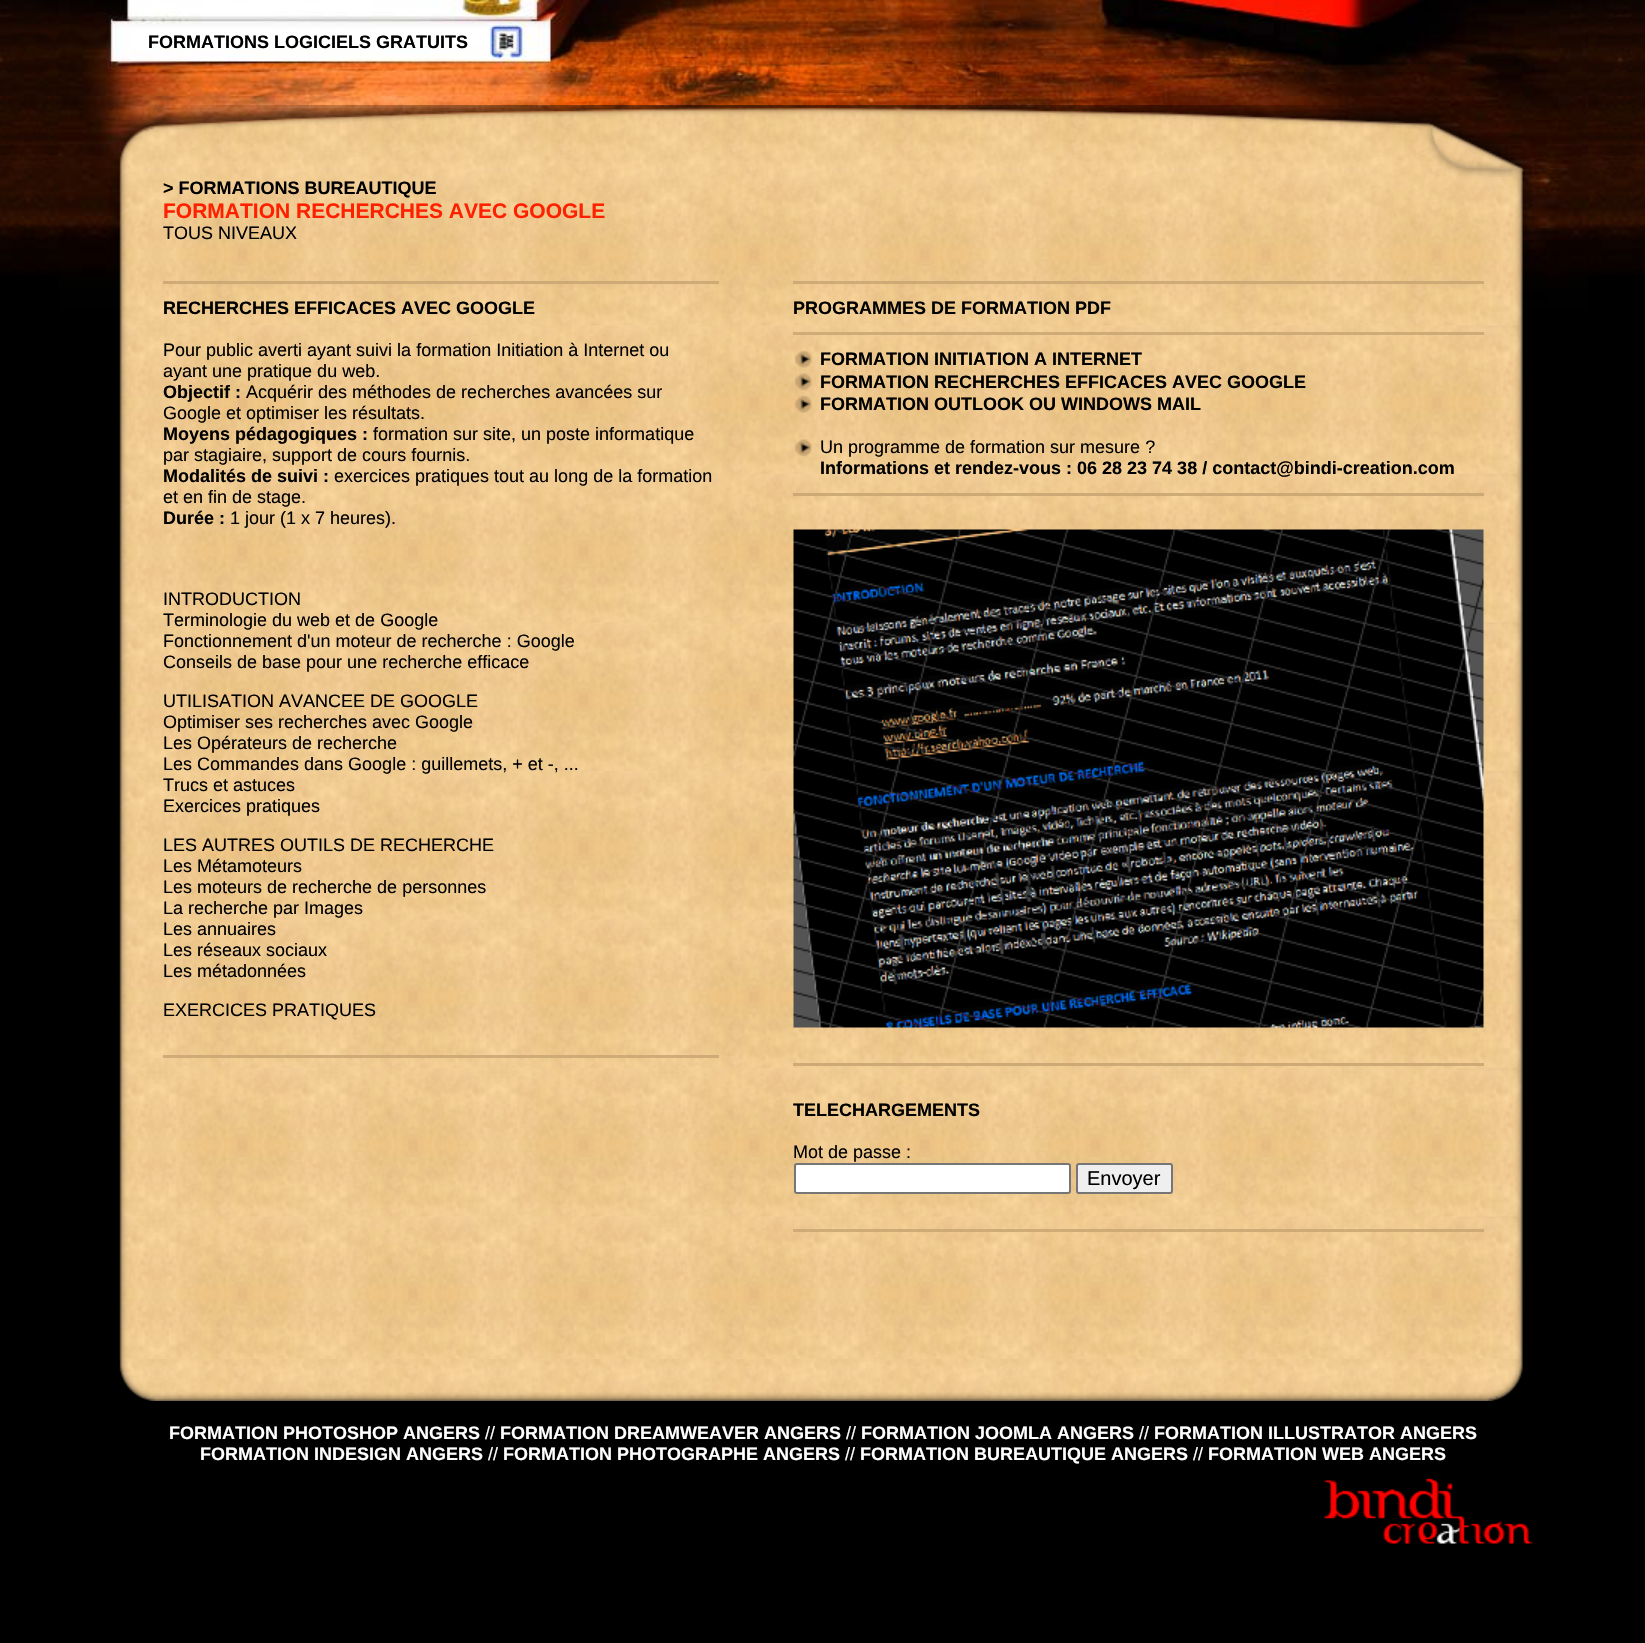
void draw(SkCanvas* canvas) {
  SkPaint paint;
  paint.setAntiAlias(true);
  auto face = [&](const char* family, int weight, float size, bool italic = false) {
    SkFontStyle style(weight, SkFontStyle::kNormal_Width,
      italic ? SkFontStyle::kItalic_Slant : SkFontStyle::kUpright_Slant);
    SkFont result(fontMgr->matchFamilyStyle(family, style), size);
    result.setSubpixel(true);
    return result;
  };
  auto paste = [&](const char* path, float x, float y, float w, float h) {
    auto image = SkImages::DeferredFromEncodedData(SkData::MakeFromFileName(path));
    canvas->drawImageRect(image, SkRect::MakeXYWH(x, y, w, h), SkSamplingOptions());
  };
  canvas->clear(0xff000000);
  paste("img/1.png", 0, 0, 1645, 275);
  paste("img/2.png", 58, 0, 1531, 310);
  paste("img/3.png", 583, 0, 76, 65);
  paste("img/4.png", 658, 0, 139, 65);
  paste("img/5.png", 796, 0, 32, 65);
  paste("img/6.png", 828, 0, 180, 65);
  paste("img/7.png", 1008, 0, 122, 65);
  paste("img/8.png", 1129, 0, 429, 65);
  paste("img/9.png", 110, 105, 1423, 72);
  paste("img/10.png", 110, 177, 1424, 1182);
  {
    const struct { float x, y, w, h; SkColor color; } items[] = {
      {163, 281, 556, 3, 0xcfc6a470},
      {163, 1055, 556, 3, 0xcfc6a470},
      {793, 281, 691, 3, 0xcfc6a470},
      {793, 332, 691, 3, 0xcfc6a470},
    };
    for (auto [x, y, w, h, color] : items) {
      paint.setColor(color);
      canvas->drawRect(SkRect::MakeXYWH(x, y, w, h), paint);
    }
  }
  paste("img/11.png", 794, 350, 18, 18);
  paste("img/12.png", 795, 373, 17, 18);
  paste("img/13.png", 794, 395, 18, 18);
  paste("img/14.png", 794, 439, 18, 18);
  paint.setColor(0xdec7a470);
  canvas->drawRect(SkRect::MakeXYWH(793, 493, 691, 3), paint);
  paste("img/15.png", 793, 529, 691, 499);
  canvas->drawRect(SkRect::MakeXYWH(793, 1063, 691, 3), paint);
  paint.setColor(0xffffffff);
  canvas->drawRoundRect(SkRect::MakeXYWH(795, 1164, 275, 29), 2, 2, paint);
  paint.setStroke(true);
  paint.setStrokeWidth(2);
  paint.setColor(0xff767676);
  canvas->drawRoundRect(SkRect::MakeXYWH(795, 1164, 275, 29), 2, 2, paint);
  paint.setStroke(false);
  paint.setColor(0xffefefef);
  canvas->drawRoundRect(SkRect::MakeXYWH(1077, 1164, 95, 29), 2, 2, paint);
  paint.setStroke(true);
  paint.setColor(0xff767676);
  canvas->drawRoundRect(SkRect::MakeXYWH(1077, 1164, 95, 29), 2, 2, paint);
  paint.setStroke(false);
  paint.setColor(0xcfc6a470);
  canvas->drawRect(SkRect::MakeXYWH(793, 1229, 691, 3), paint);
  paste("img/16.png", 119, 1359, 1404, 42);
  paste("img/17.png", 1324, 1478, 210, 66);
  auto f0 = face("Liberation Sans", 700, 18);
  paint.setColor(0xff000000);
  canvas->drawString("FORMATIONS LOGICIELS GRATUITS", 148, 48, f0, paint);
  canvas->drawString("> FORMATIONS BUREAUTIQUE", 163, 194, f0, paint);
  auto f1 = face("Liberation Sans", 700, 21);
  paint.setColor(0xffff2000);
  canvas->drawString("FORMATION RECHERCHES AVEC GOOGLE", 163, 218, f1, paint);
  auto f2 = face("Liberation Sans", 400, 18);
  paint.setColor(0xff000000);
  canvas->drawString("TOUS NIVEAUX", 163, 239, f2, paint);
  canvas->drawString("RECHERCHES EFFICACES AVEC GOOGLE", 163, 314, f0, paint);
  canvas->drawString("Pour public averti ayant suivi la formation Initiation à Internet ou", 163, 356, f2, paint);
  canvas->drawString("ayant une pratique du web.", 163, 377, f2, paint);
  canvas->drawString("Objectif :", 163, 398, f0, paint);
  canvas->drawString("Acquérir des méthodes de recherches avancées sur", 246, 398, f2, paint);
  canvas->drawString("Google et optimiser les résultats.", 163, 419, f2, paint);
  canvas->drawString("Moyens pédagogiques :", 163, 440, f0, paint);
  canvas->drawString("formation sur site, un poste informatique", 373, 440, f2, paint);
  canvas->drawString("par stagiaire, support de cours fournis.", 163, 461, f2, paint);
  canvas->drawString("Modalités de suivi :", 163, 482, f0, paint);
  canvas->drawString("exercices pratiques tout au long de la formation", 334, 482, f2, paint);
  canvas->drawString("et en fin de stage.", 163, 503, f2, paint);
  canvas->drawString("Durée :", 163, 524, f0, paint);
  {
    const struct { const char* s; float x, y; } items[] = {
      {"1 jour (1 x 7 heures).", 230, 524},
      {"INTRODUCTION", 163, 605},
      {"Terminologie du web et de Google", 163, 626},
      {"Fonctionnement d'un moteur de recherche : Google", 163, 647},
      {"Conseils de base pour une recherche efficace", 163, 668},
      {"UTILISATION AVANCEE DE GOOGLE", 163, 707},
      {"Optimiser ses recherches avec Google", 163, 728},
      {"Les Opérateurs de recherche", 163, 749},
      {"Les Commandes dans Google : guillemets, + et -, ...", 163, 770},
      {"Trucs et astuces", 163, 791},
      {"Exercices pratiques", 163, 812},
      {"LES AUTRES OUTILS DE RECHERCHE", 163, 851},
      {"Les Métamoteurs", 163, 872},
      {"Les moteurs de recherche de personnes", 163, 893},
      {"La recherche par Images", 163, 914},
      {"Les annuaires", 163, 935},
      {"Les réseaux sociaux", 163, 956},
      {"Les métadonnées", 163, 977},
      {"EXERCICES PRATIQUES", 163, 1016},
    };
    for (auto [s, x, y] : items) {
      canvas->drawString(s, x, y, f2, paint);
    }
  }
  {
    const struct { const char* s; float x, y; } items[] = {
      {"PROGRAMMES DE FORMATION PDF", 793, 314},
      {"FORMATION INITIATION A INTERNET", 820, 365},
      {"FORMATION RECHERCHES EFFICACES AVEC GOOGLE", 820, 388},
      {"FORMATION OUTLOOK OU WINDOWS MAIL", 820, 410},
    };
    for (auto [s, x, y] : items) {
      canvas->drawString(s, x, y, f0, paint);
    }
  }
  canvas->drawString("Un programme de formation sur mesure ?", 820, 453, f2, paint);
  canvas->drawString("Informations et rendez-vous : 06 28 23 74 38 / contact@bindi-creation.com", 820, 474, f0, paint);
  canvas->drawString("TELECHARGEMENTS", 793, 1116, f0, paint);
  canvas->drawString("Mot de passe :", 793, 1158, f2, paint);
  auto f3 = face("Liberation Sans", 400, 20);
  canvas->drawString("Envoyer", 1087, 1185, f3, paint);
  paint.setColor(0xffffffff);
  canvas->drawString("FORMATION PHOTOSHOP ANGERS", 169, 1439, f0, paint);
  canvas->drawString("//", 485, 1439, f2, paint);
  canvas->drawString("FORMATION DREAMWEAVER ANGERS", 500, 1439, f0, paint);
  canvas->drawString("//", 846, 1439, f2, paint);
  canvas->drawString("FORMATION JOOMLA ANGERS", 861, 1439, f0, paint);
  canvas->drawString("//", 1139, 1439, f2, paint);
  canvas->drawString("FORMATION ILLUSTRATOR ANGERS", 1154, 1439, f0, paint);
  canvas->drawString("FORMATION INDESIGN ANGERS", 200, 1460, f0, paint);
  canvas->drawString("//", 488, 1460, f2, paint);
  canvas->drawString("FORMATION PHOTOGRAPHE ANGERS", 503, 1460, f0, paint);
  canvas->drawString("//", 845, 1460, f2, paint);
  canvas->drawString("FORMATION BUREAUTIQUE ANGERS", 860, 1460, f0, paint);
  canvas->drawString("//", 1193, 1460, f2, paint);
  canvas->drawString("FORMATION WEB ANGERS", 1208, 1460, f0, paint);
}
